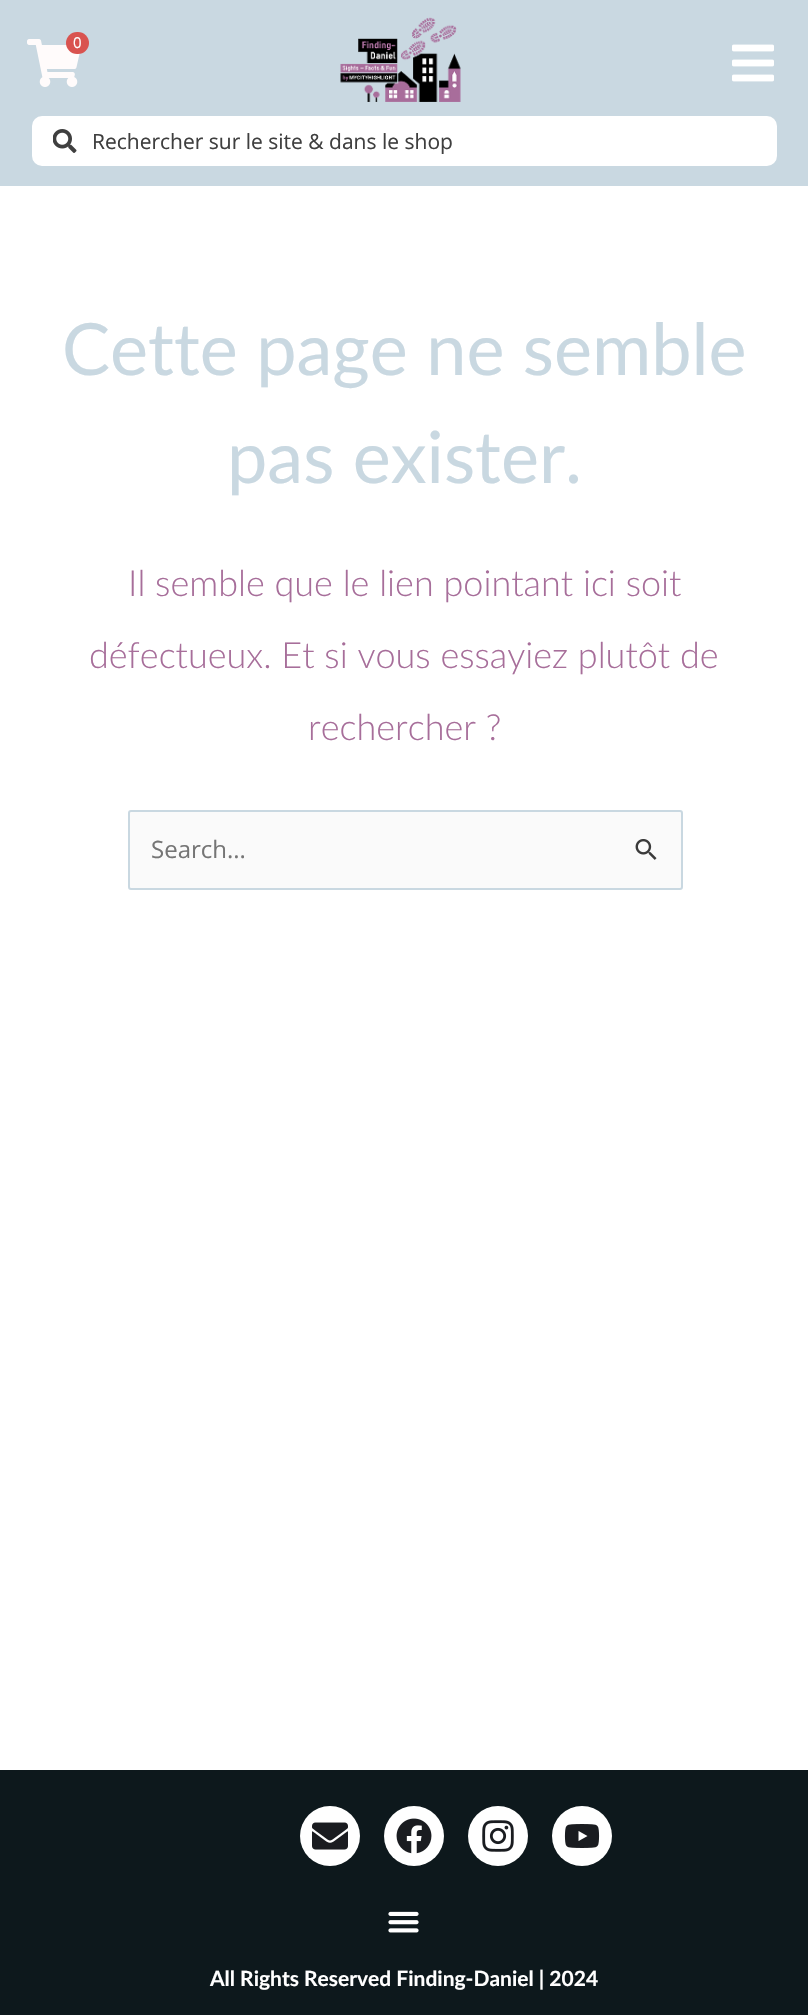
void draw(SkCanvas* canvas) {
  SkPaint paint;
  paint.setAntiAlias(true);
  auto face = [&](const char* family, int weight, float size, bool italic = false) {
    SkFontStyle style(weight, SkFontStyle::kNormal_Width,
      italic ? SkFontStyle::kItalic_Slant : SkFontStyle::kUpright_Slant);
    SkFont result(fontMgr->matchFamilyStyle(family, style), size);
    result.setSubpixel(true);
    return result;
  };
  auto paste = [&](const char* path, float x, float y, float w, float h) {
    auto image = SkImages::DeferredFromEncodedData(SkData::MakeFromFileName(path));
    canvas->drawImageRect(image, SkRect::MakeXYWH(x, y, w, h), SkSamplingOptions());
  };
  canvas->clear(0xffffffff);
  paint.setColor(0xffc9d8e1);
  canvas->drawRect(SkRect::MakeXYWH(0, 0, 808, 186), paint);
  paste("img/1.png", 27, 39, 53, 48);
  paint.setColor(0xffd9534f);
  canvas->drawRoundRect(SkRect::MakeXYWH(66, 32, 23, 22), 11, 11, paint);
  paste("img/2.png", 340, 17, 121, 85);
  paste("img/3.png", 732, 44, 42, 38);
  paint.setColor(0xffffffff);
  canvas->drawRoundRect(SkRect::MakeXYWH(31, 115, 747, 52), 11, 11, paint);
  paint.setStroke(true);
  paint.setStrokeWidth(2);
  paint.setColor(0xffc9d8e1);
  canvas->drawRoundRect(SkRect::MakeXYWH(31, 115, 747, 52), 11, 11, paint);
  paste("img/4.png", 53, 129, 24, 24);
  paint.setStroke(false);
  paint.setColor(0xfffafafa);
  canvas->drawRoundRect(SkRect::MakeXYWH(129, 811, 553, 78), 2, 2, paint);
  paint.setStroke(true);
  paint.setColor(0xffc9d8e1);
  canvas->drawRoundRect(SkRect::MakeXYWH(129, 811, 553, 78), 2, 2, paint);
  paste("img/5.png", 635, 839, 22, 21);
  paint.setStroke(false);
  paint.setColor(0xff0d181c);
  canvas->drawRect(SkRect::MakeXYWH(0, 1770, 808, 245), paint);
  paint.setColor(0xffffffff);
  canvas->drawCircle(330, 1836, 30, paint);
  paste("img/6.png", 312, 1822, 36, 28);
  canvas->drawCircle(414, 1836, 30, paint);
  paste("img/7.png", 396, 1818, 36, 36);
  canvas->drawCircle(498, 1836, 30, paint);
  paste("img/8.png", 482, 1820, 32, 32);
  canvas->drawCircle(582, 1836, 30, paint);
  paste("img/9.png", 564, 1824, 36, 24);
  paste("img/10.png", 388, 1911, 31, 22);
  auto f0 = face("Open Sans", 400, 15);
  canvas->drawString("0", 73, 48, f0, paint);
  auto f1 = face("Open Sans", 400, 21);
  paint.setColor(0xff3f3f3f);
  canvas->drawString("Rechercher sur le site & dans le shop", 92, 149, f1, paint);
  auto f2 = face("Lato", 400, 72);
  paint.setColor(0xffc9d8e1);
  canvas->drawString("Cette page ne semble", 62, 375, f2, paint);
  canvas->drawString("pas exister.", 227, 483, f2, paint);
  auto f3 = face("Lato", 300, 36);
  paint.setColor(0xffa76e9a);
  {
    const struct { const char* s; float x, y; } items[] = {
      {"Il semble que le lien pointant ici soit", 128, 596},
      {"défectueux. Et si vous essayiez plutôt de", 89, 668},
      {"rechercher ?", 308, 740},
    };
    for (auto [s, x, y] : items) {
      canvas->drawString(s, x, y, f3, paint);
    }
  }
  auto f4 = face("Open Sans", 400, 24);
  paint.setColor(0xff757575);
  canvas->drawString("Search...", 151, 858, f4, paint);
  auto f5 = face("Lato", 700, 21);
  paint.setColor(0xffffffff);
  canvas->drawString("All Rights Reserved Finding-Daniel | 2024", 210, 1986, f5, paint);
}
